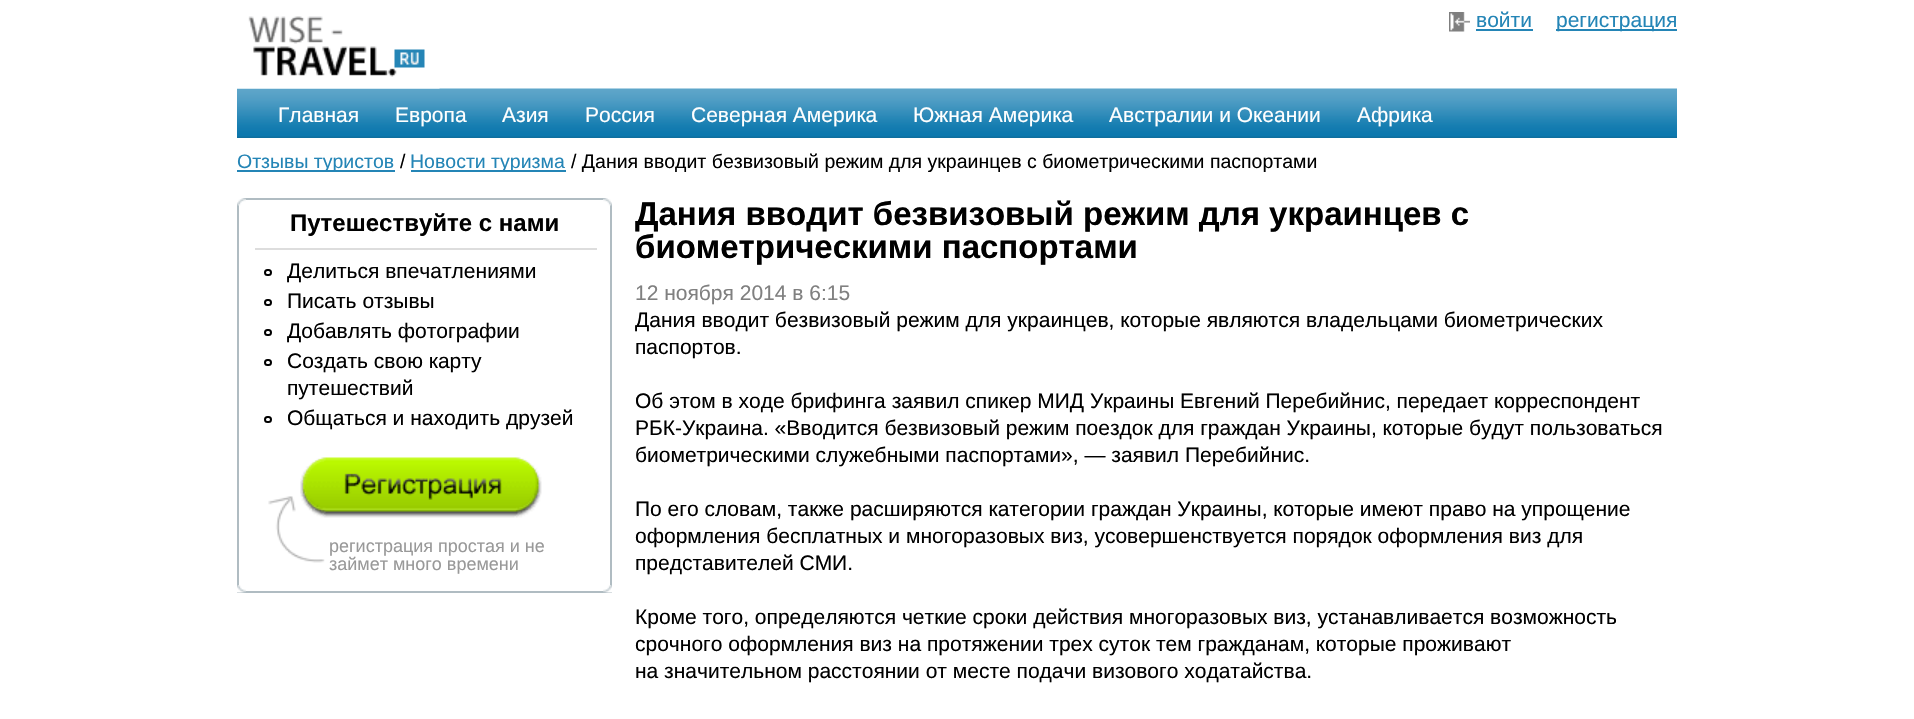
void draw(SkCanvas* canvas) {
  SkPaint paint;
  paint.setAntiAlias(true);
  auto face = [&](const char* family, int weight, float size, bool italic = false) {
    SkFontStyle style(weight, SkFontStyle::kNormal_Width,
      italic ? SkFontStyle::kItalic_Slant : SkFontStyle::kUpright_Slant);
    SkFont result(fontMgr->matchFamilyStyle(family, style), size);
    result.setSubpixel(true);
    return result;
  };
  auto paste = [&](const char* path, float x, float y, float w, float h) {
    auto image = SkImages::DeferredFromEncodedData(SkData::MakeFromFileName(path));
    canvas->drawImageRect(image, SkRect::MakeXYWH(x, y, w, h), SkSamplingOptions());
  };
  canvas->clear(0xffffffff);
  paste("img/3.png", 237, 88, 1440, 50);
  paste("img/1.png", 237, 16, 203, 73);
  paste("img/2.png", 1449, 12, 21, 20);
  {
    const struct { float x, y, w, h; SkColor color; } items[] = {
      {1476, 29, 57, 2, 0xff2485b6},
      {1556, 29, 121, 2, 0xff2485b6},
      {237, 170, 158, 2, 0xff2485b6},
      {411, 170, 155, 2, 0xff2485b6},
    };
    for (auto [x, y, w, h, color] : items) {
      paint.setColor(color);
      canvas->drawRect(SkRect::MakeXYWH(x, y, w, h), paint);
    }
  }
  paint.setStroke(true);
  paint.setStrokeWidth(2);
  paint.setColor(0xffb0bcc2);
  canvas->drawRect(SkRect::MakeXYWH(238, 199, 373, 393), paint);
  paste("img/4.png", 237, 198, 9, 8);
  paste("img/5.png", 603, 198, 9, 8);
  paint.setStroke(false);
  paint.setColor(0xffdddddd);
  canvas->drawRect(SkRect::MakeXYWH(255, 248, 342, 2), paint);
  paint.setStroke(true);
  paint.setColor(0xff000000);
  canvas->drawRoundRect(SkRect::MakeXYWH(265, 270, 6, 5), 2.5f, 2.5f, paint);
  canvas->drawRoundRect(SkRect::MakeXYWH(265, 300, 6, 5), 2.5f, 2.5f, paint);
  canvas->drawRoundRect(SkRect::MakeXYWH(265, 330, 6, 5), 2.5f, 2.5f, paint);
  canvas->drawRoundRect(SkRect::MakeXYWH(265, 360, 6, 5), 2.5f, 2.5f, paint);
  canvas->drawRoundRect(SkRect::MakeXYWH(265, 417, 6, 5), 2.5f, 2.5f, paint);
  paste("img/6.png", 268, 496, 57, 67);
  paste("img/7.png", 300, 457, 242, 61);
  paste("img/8.png", 237, 585, 9, 8);
  paste("img/9.png", 603, 585, 9, 8);
  auto f0 = face("Liberation Sans", 400, 21);
  paint.setStroke(false);
  paint.setColor(0xff2485b6);
  canvas->drawString("войти", 1476, 27, f0, paint);
  canvas->drawString("регистрация", 1556, 27, f0, paint);
  paint.setColor(0xffffffff);
  {
    const struct { const char* s; float x, y; } items[] = {
      {"Главная", 278, 122},
      {"Европа", 395, 122},
      {"Азия", 502, 122},
      {"Россия", 585, 122},
      {"Северная Америка", 691, 122},
      {"Южная Америка", 913, 122},
      {"Австралии и Океании", 1109, 122},
      {"Африка", 1357, 122},
    };
    for (auto [s, x, y] : items) {
      canvas->drawString(s, x, y, f0, paint);
    }
  }
  auto f1 = face("Liberation Sans", 400, 19.5f);
  paint.setColor(0xff2485b6);
  canvas->drawString("Отзывы туристов", 237, 168, f1, paint);
  paint.setColor(0xff000000);
  canvas->drawString("/", 400, 168, f1, paint);
  paint.setColor(0xff2485b6);
  canvas->drawString("Новости туризма", 410, 168, f1, paint);
  paint.setColor(0xff000000);
  canvas->drawString("/ Дания вводит безвизовый режим для украинцев с биометрическими паспортами", 571, 168, f1, paint);
  auto f2 = face("Liberation Sans", 700, 24);
  canvas->drawString("Путешествуйте с нами", 290, 231, f2, paint);
  {
    const struct { const char* s; float x, y; } items[] = {
      {"Делиться впечатлениями", 287, 278},
      {"Писать отзывы", 287, 308},
      {"Добавлять фотографии", 287, 338},
      {"Создать свою карту", 287, 368},
      {"путешествий", 287, 395},
      {"Общаться и находить друзей", 287, 425},
    };
    for (auto [s, x, y] : items) {
      canvas->drawString(s, x, y, f0, paint);
    }
  }
  auto f3 = face("Liberation Sans", 400, 18);
  paint.setColor(0xff999999);
  canvas->drawString("регистрация простая и не", 329, 552, f3, paint);
  canvas->drawString("займет много времени", 329, 570, f3, paint);
  auto f4 = face("Liberation Sans", 700, 33);
  paint.setColor(0xff000000);
  canvas->drawString("Дания вводит безвизовый режим для украинцев с", 635, 225, f4, paint);
  canvas->drawString("биометрическими паспортами", 635, 258, f4, paint);
  paint.setColor(0xff808080);
  canvas->drawString("12 ноября 2014 в 6:15", 635, 300, f0, paint);
  paint.setColor(0xff000000);
  {
    const struct { const char* s; float x, y; } items[] = {
      {"Дания вводит безвизовый режим для украинцев, которые являются владельцами биометрических", 635, 327},
      {"паспортов.", 635, 354},
      {"Об этом в ходе брифинга заявил спикер МИД Украины Евгений Перебийнис, передает корреспондент", 635, 408},
      {"РБК-Украина. «Вводится безвизовый режим поездок для граждан Украины, которые будут пользоваться", 635, 435},
      {"биометрическими служебными паспортами», — заявил Перебийнис.", 635, 462},
      {"По его словам, также расширяются категории граждан Украины, которые имеют право на упрощение", 635, 516},
      {"оформления бесплатных и многоразовых виз, усовершенствуется порядок оформления виз для", 635, 543},
      {"представителей СМИ.", 635, 570},
      {"Кроме того, определяются четкие сроки действия многоразовых виз, устанавливается возможность", 635, 624},
      {"срочного оформления виз на протяжении трех суток тем гражданам, которые проживают", 635, 651},
      {"на значительном расстоянии от месте подачи визового ходатайства.", 635, 678},
    };
    for (auto [s, x, y] : items) {
      canvas->drawString(s, x, y, f0, paint);
    }
  }
}
